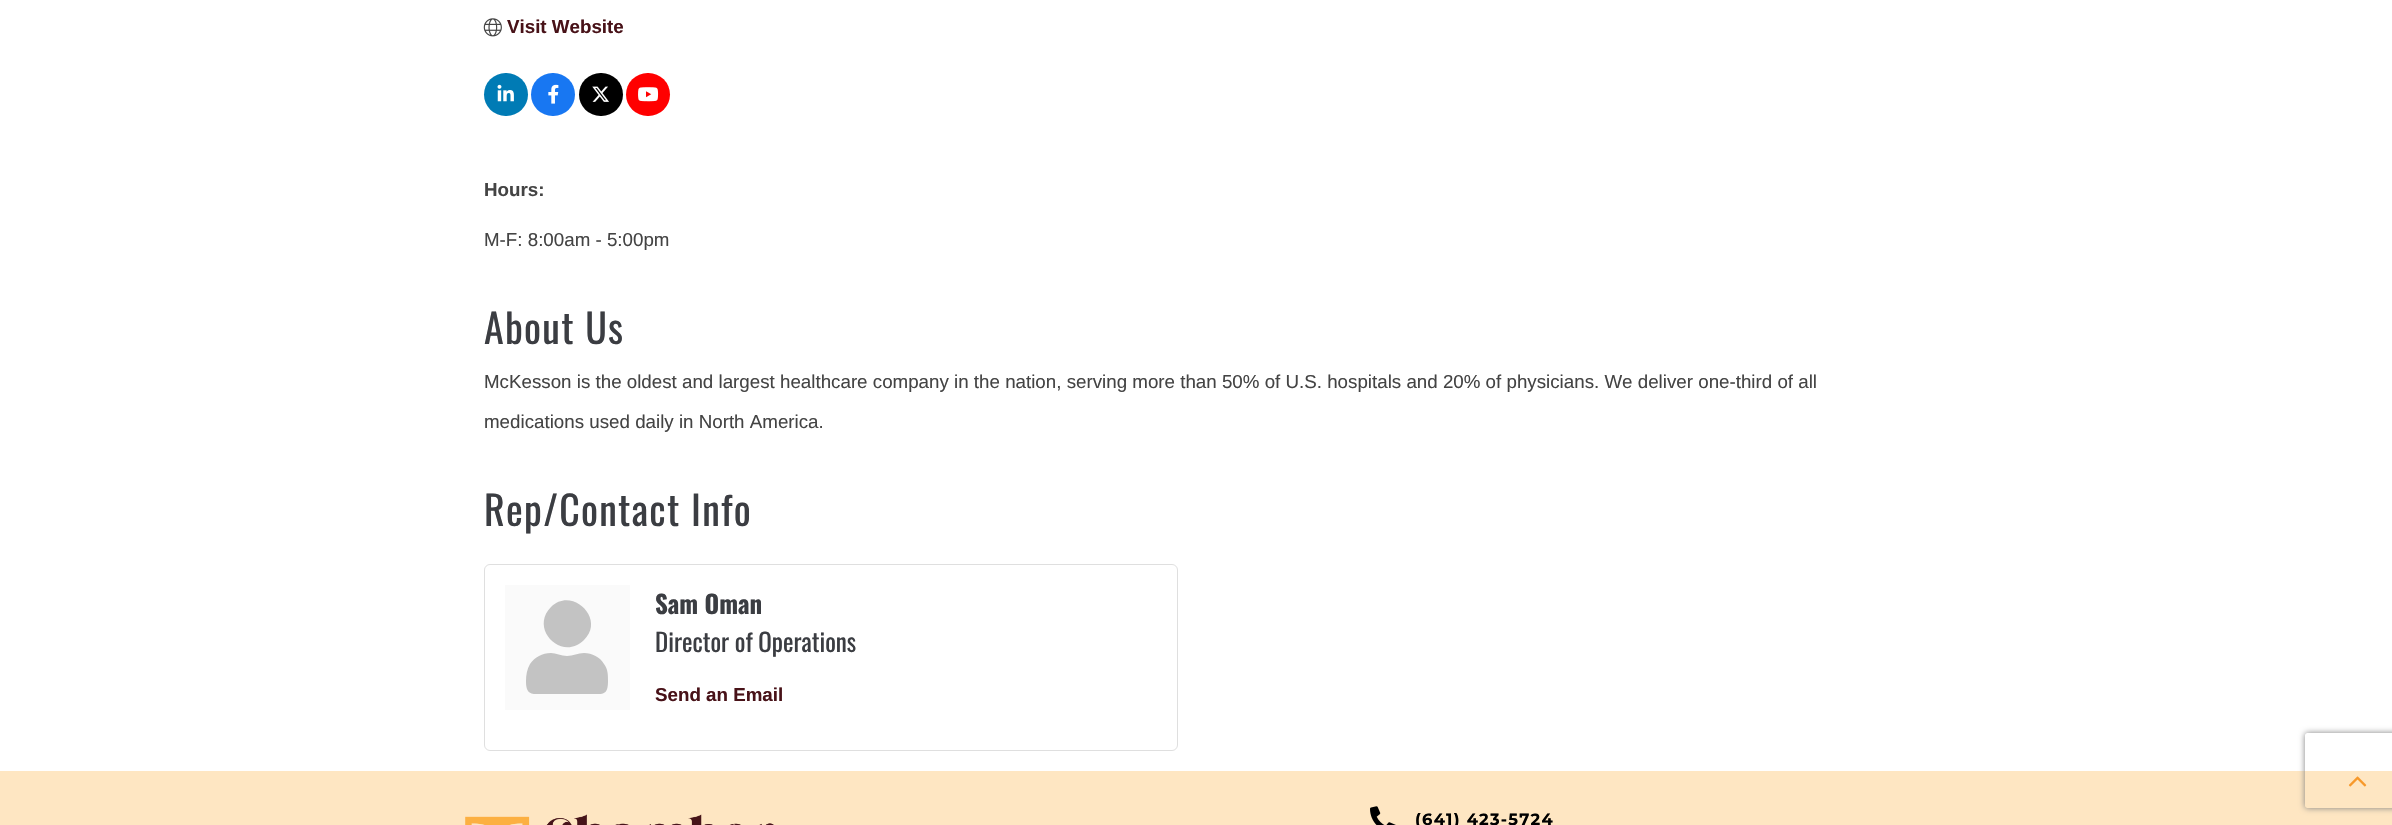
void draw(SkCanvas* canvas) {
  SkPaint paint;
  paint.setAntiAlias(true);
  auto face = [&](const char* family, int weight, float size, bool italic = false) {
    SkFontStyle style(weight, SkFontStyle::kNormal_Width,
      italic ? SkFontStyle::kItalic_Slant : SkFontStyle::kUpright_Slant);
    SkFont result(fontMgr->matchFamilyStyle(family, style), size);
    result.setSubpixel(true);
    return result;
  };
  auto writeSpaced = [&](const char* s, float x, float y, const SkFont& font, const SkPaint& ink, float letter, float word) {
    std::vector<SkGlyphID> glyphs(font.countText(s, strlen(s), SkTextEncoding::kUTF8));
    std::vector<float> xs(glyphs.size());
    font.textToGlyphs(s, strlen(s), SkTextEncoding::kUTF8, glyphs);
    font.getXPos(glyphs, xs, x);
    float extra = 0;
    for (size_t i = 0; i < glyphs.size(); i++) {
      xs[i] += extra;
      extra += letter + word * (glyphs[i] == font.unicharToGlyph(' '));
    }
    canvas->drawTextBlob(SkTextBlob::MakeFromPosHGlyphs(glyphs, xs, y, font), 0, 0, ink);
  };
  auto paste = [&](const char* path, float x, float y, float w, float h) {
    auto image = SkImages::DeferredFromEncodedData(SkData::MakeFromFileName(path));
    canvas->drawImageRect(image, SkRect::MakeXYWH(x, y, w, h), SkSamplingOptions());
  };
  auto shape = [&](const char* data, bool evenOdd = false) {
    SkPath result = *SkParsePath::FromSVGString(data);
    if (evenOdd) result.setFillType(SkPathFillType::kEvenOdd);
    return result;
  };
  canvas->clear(0xffffffff);
  paste("img/1.png", 483, 18, 19, 19);
  paint.setColor(0xff007bb5);
  canvas->drawRoundRect(SkRect::MakeXYWH(484, 73, 44, 43), 21.5f, 21.5f, paint);
  paste("img/2.png", 497, 84, 17, 18);
  paint.setColor(0xff1877f2);
  canvas->drawRoundRect(SkRect::MakeXYWH(531, 73, 44, 43), 21.5f, 21.5f, paint);
  paste("img/3.png", 548, 84, 11, 20);
  paint.setColor(0xff000000);
  canvas->drawRoundRect(SkRect::MakeXYWH(579, 73, 44, 43), 21.5f, 21.5f, paint);
  paste("img/4.png", 592, 86, 17, 16);
  paint.setColor(0xffff0000);
  canvas->drawRoundRect(SkRect::MakeXYWH(626, 73, 44, 43), 21.5f, 21.5f, paint);
  paste("img/5.png", 638, 87, 21, 15);
  paint.setStroke(true);
  paint.setStrokeWidth(1);
  paint.setColor(0xffdfdfdf);
  canvas->drawRoundRect(SkRect::MakeXYWH(484.5f, 564.5f, 693, 186), 5.5f, 5.5f, paint);
  paint.setStroke(false);
  paint.setColor(0xfffafafa);
  canvas->drawRect(SkRect::MakeXYWH(505, 585, 125, 125), paint);
  paint.setColor(0xffc3c3c3);
  canvas->drawPath(shape("M584 640C562 662 529 629 551 607C572 586 606 619 584 640ZM584 653C592 653 600 657 604 664C608 669 608 675 608 681C608 696 603 694 589 694H546C532 694 526 696 526 681C526 675 527 669 530 664C535 657 542 653 551 653C556 653 561 656 567 656C573 656 578 653 584 653Z"), paint);
  paint.setColor(0xfffee6c2);
  canvas->drawRect(SkRect::MakeXYWH(0, 771, 2392, 54), paint);
  paste("img/6.png", 465, 814, 309, 11);
  paste("img/7.png", 1370, 806, 26, 19);
  canvas->save();
  canvas->clipPath(shape("M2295 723H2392V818H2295ZM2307.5 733H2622.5C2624 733 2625 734 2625 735.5V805.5C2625 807 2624 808 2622.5 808H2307.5C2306 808 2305 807 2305 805.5V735.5C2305 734 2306 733 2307.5 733Z", true), true);
  paint.setColor(0xff808080);
  paint.setMaskFilter(SkMaskFilter::MakeBlur(kNormal_SkBlurStyle, 3));
  canvas->drawRoundRect(SkRect::MakeXYWH(2305, 733, 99, 75), 2.5f, 2.5f, paint);
  paint.setMaskFilter(nullptr);
  canvas->restore();
  paste("img/8.png", 2348, 776, 19, 11);
  auto f0 = face("Liberation Sans", 700, 18.75f);
  paint.setColor(0xff481218);
  canvas->drawString("Visit Website", 507, 33, f0, paint);
  paint.setColor(0xff444444);
  canvas->drawString("Hours:", 484, 196, f0, paint);
  auto f1 = face("Liberation Sans", 400, 18.75f);
  canvas->drawString("M-F: 8:00am - 5:00pm", 484, 246, f1, paint);
  auto f2 = face("Oswald", 400, 40);
  paint.setColor(0xff3b3d42);
  writeSpaced("About Us", 484, 344, f2, paint, 1.25f, 0);
  paint.setColor(0xff444444);
  canvas->drawString("McKesson is the oldest and largest healthcare company in the nation, serving more than 50% of U.S. hospitals and 20% of physicians. We deliver one-third of all", 484, 388, f1, paint);
  canvas->drawString("medications used daily in North America.", 484, 428, f1, paint);
  paint.setColor(0xff3b3d42);
  writeSpaced("Rep/Contact Info", 484, 526, f2, paint, 1.25f, 0);
  auto f3 = face("Oswald", 700, 25);
  canvas->drawString("Sam Oman", 655, 614, f3, paint);
  auto f4 = face("Oswald", 400, 25);
  canvas->drawString("Director of Operations", 655, 652, f4, paint);
  paint.setColor(0xff481218);
  canvas->drawString("Send an Email", 655, 701, f0, paint);
  auto f5 = face("Montserrat", 700, 16.25f);
  paint.setColor(0xff000000);
  writeSpaced("(641) 423-5724", 1415, 825, f5, paint, 1.25f, 0);
}
